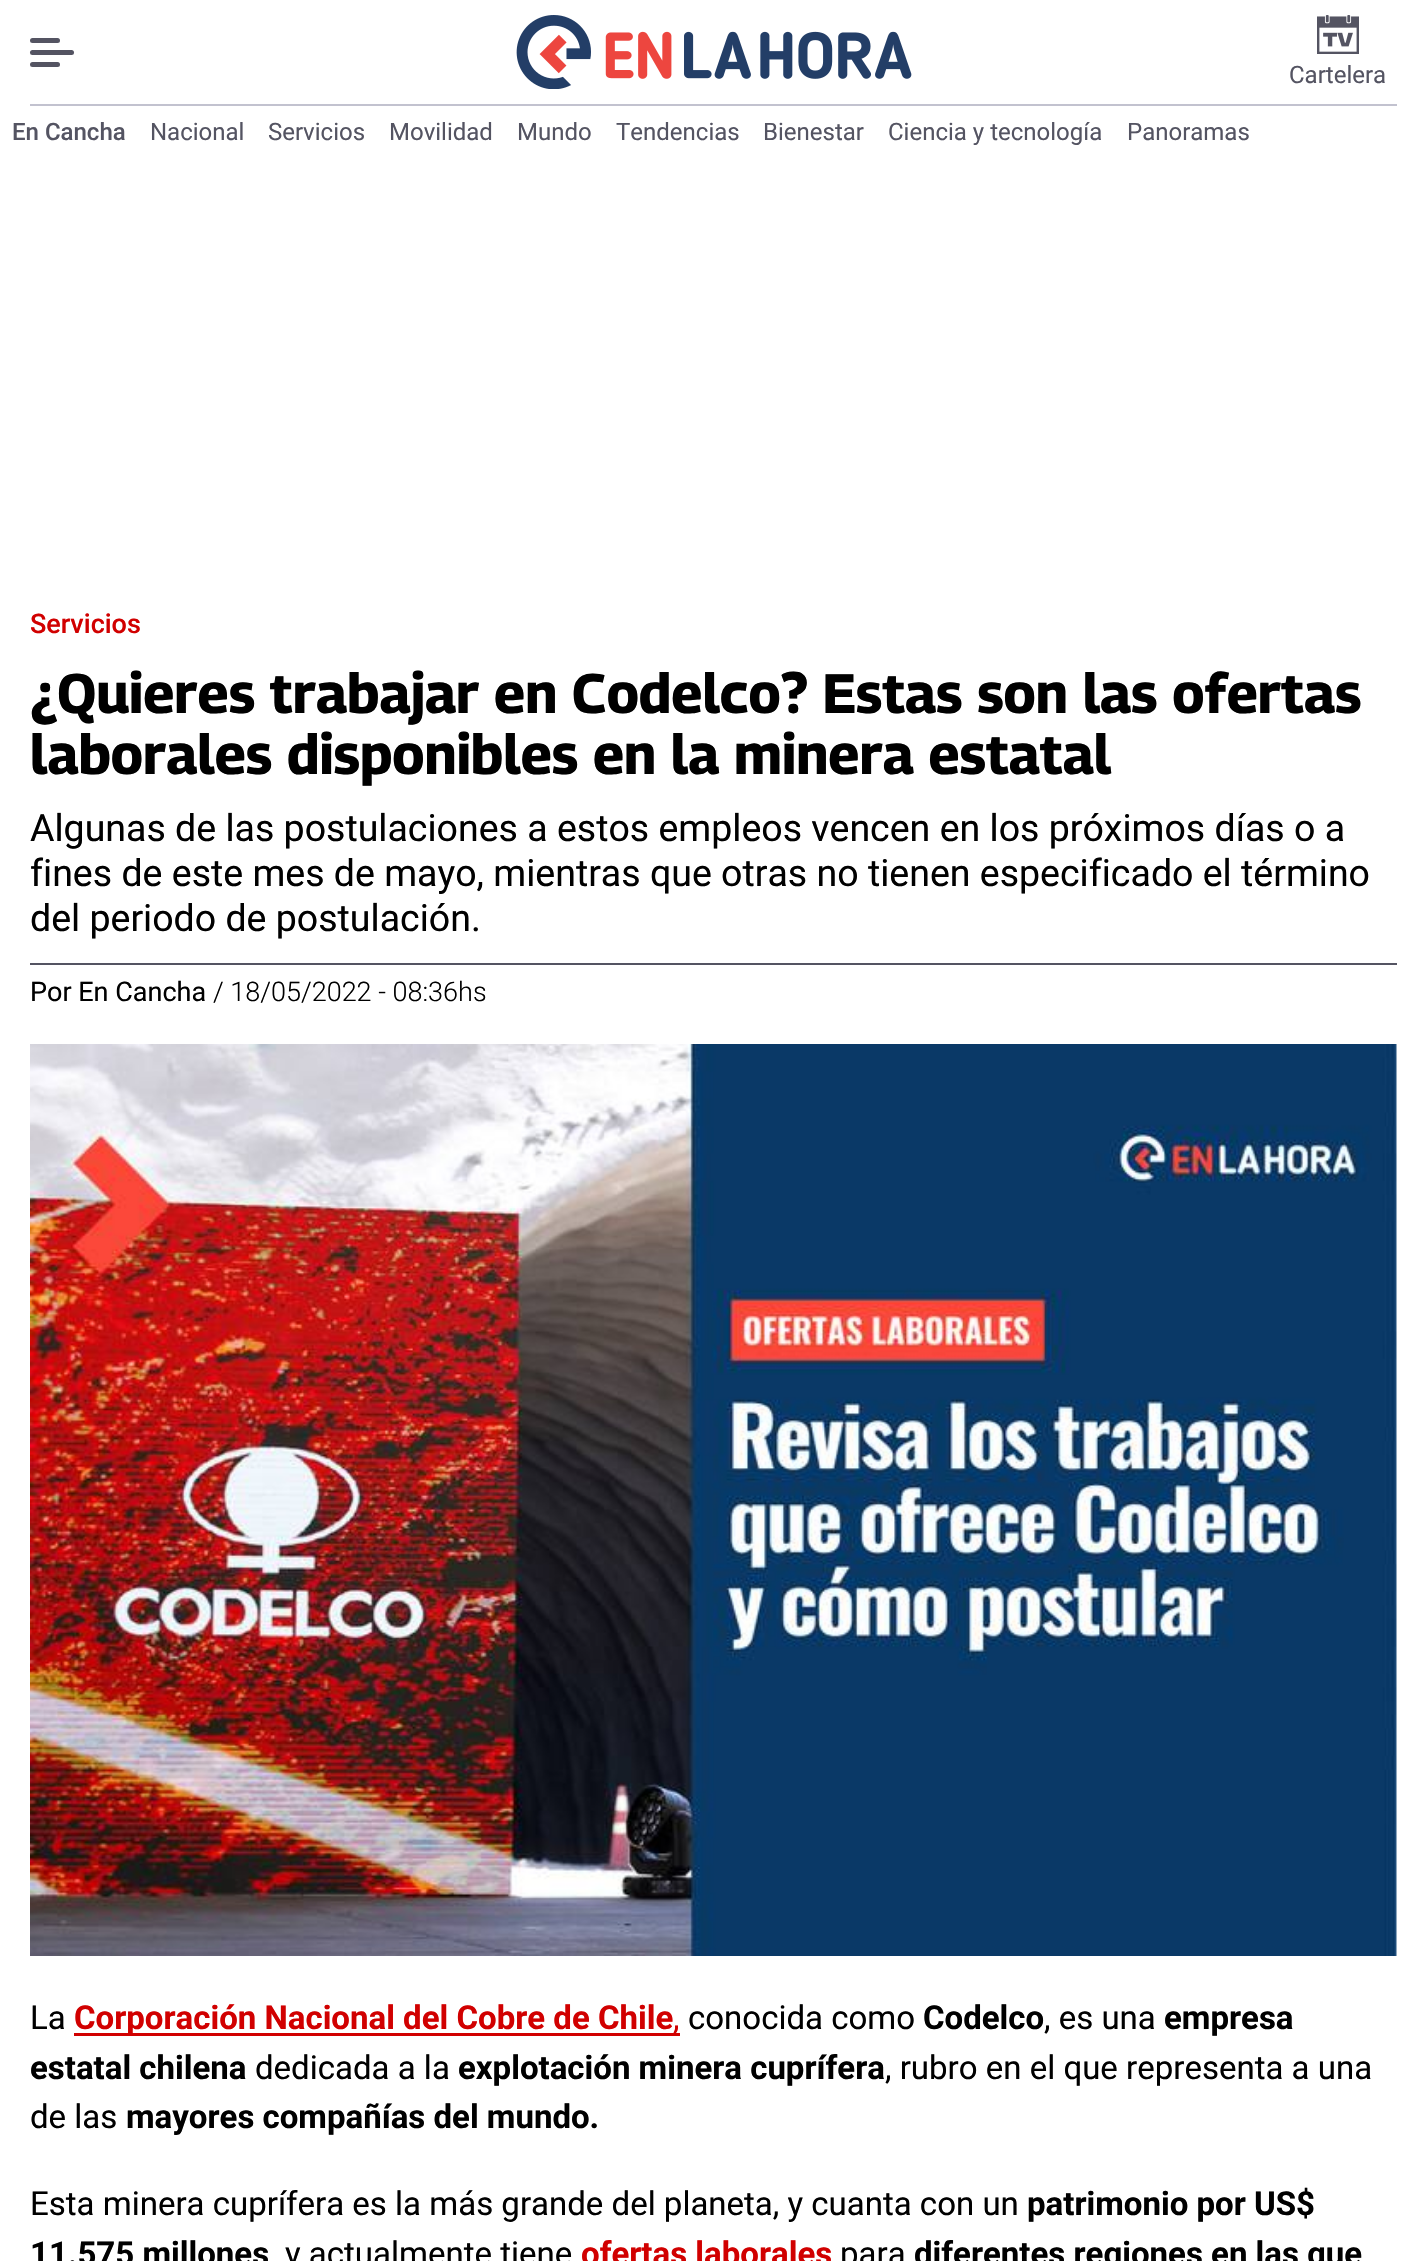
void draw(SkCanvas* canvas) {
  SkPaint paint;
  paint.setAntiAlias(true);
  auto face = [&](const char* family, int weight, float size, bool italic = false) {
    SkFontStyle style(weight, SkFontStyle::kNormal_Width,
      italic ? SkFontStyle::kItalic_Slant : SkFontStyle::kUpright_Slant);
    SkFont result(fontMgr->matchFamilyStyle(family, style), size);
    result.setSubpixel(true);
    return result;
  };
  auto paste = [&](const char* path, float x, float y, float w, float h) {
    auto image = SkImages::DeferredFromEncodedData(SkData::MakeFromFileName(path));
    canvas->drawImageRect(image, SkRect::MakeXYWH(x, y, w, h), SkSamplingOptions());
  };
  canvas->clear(0xffffffff);
  paint.setColor(0xffc2c2cf);
  canvas->drawRect(SkRect::MakeXYWH(30, 104, 1367, 2), paint);
  paint.setColor(0xff545462);
  canvas->drawRoundRect(SkRect::MakeXYWH(30, 38, 30, 5), 2.5f, 2.5f, paint);
  canvas->drawRoundRect(SkRect::MakeXYWH(30, 50, 44, 5), 2.5f, 2.5f, paint);
  canvas->drawRoundRect(SkRect::MakeXYWH(30, 62, 30, 5), 2.5f, 2.5f, paint);
  paste("img/1.png", 516, 15, 396, 74);
  paste("img/2.png", 1317, 15, 42, 39);
  canvas->drawRect(SkRect::MakeXYWH(30, 963, 1367, 2), paint);
  paste("img/3.png", 30, 1044, 1367, 912);
  paint.setColor(0xffd10000);
  canvas->drawRect(SkRect::MakeXYWH(74, 2033, 606, 3), paint);
  auto f0 = face("Roboto", 400, 24);
  paint.setColor(0xff545462);
  canvas->drawString("Cartelera", 1289, 83, f0, paint);
  auto f1 = face("Roboto", 500, 24);
  canvas->drawString("En Cancha", 12, 140, f1, paint);
  {
    const struct { const char* s; float x, y; } items[] = {
      {"Nacional", 150, 140},
      {"Servicios", 268, 140},
      {"Movilidad", 389, 140},
      {"Mundo", 517, 140},
      {"Tendencias", 616, 140},
      {"Bienestar", 763, 140},
      {"Ciencia y tecnología", 888, 140},
      {"Panoramas", 1127, 140},
    };
    for (auto [s, x, y] : items) {
      canvas->drawString(s, x, y, f0, paint);
    }
  }
  auto f2 = face("Roboto", 500, 27);
  paint.setColor(0xffd10000);
  canvas->drawString("Servicios", 30, 633, f2, paint);
  auto f3 = face("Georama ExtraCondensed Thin", 700, 55.5f);
  paint.setColor(0xff000000);
  canvas->drawString("¿Quieres trabajar en Codelco? Estas son las ofertas", 30, 713, f3, paint);
  canvas->drawString("laborales disponibles en la minera estatal", 30, 774, f3, paint);
  auto f4 = face("Roboto", 400, 37.5f);
  {
    const struct { const char* s; float x, y; } items[] = {
      {"Algunas de las postulaciones a estos empleos vencen en los próximos días o a", 30, 841},
      {"fines de este mes de mayo, mientras que otras no tienen especificado el término", 30, 886},
      {"del periodo de postulación.", 30, 931},
    };
    for (auto [s, x, y] : items) {
      canvas->drawString(s, x, y, f4, paint);
    }
  }
  auto f5 = face("Roboto", 400, 27);
  canvas->drawString("Por En Cancha", 30, 1001, f5, paint);
  auto f6 = face("Roboto", 300, 27);
  canvas->drawString("/ 18/05/2022 - 08:36hs", 213, 1001, f6, paint);
  auto f7 = face("Roboto", 400, 33);
  canvas->drawString("La", 30, 2029, f7, paint);
  auto f8 = face("Roboto", 700, 33);
  paint.setColor(0xffd10000);
  canvas->drawString("Corporación Nacional del Cobre de Chile", 74, 2029, f8, paint);
  canvas->drawString(",", 673, 2029, f7, paint);
  paint.setColor(0xff000000);
  canvas->drawString("conocida como", 688, 2029, f7, paint);
  canvas->drawString("Codelco", 923, 2029, f8, paint);
  canvas->drawString(", es una", 1044, 2029, f7, paint);
  canvas->drawString("empresa", 1164, 2029, f8, paint);
  canvas->drawString("estatal chilena", 30, 2079, f8, paint);
  canvas->drawString("dedicada a la", 255, 2079, f7, paint);
  canvas->drawString("explotación minera cuprífera", 458, 2079, f8, paint);
  canvas->drawString(", rubro en el que representa a una", 885, 2079, f7, paint);
  canvas->drawString("de las", 30, 2128, f7, paint);
  canvas->drawString("mayores compañías del mundo.", 126, 2128, f8, paint);
  canvas->drawString("Esta minera cuprífera es la más grande del planeta, y cuanta con un", 30, 2215, f7, paint);
  canvas->drawString("patrimonio por US$", 1027, 2215, f8, paint);
  canvas->drawString("11.575 millones", 30, 2265, f8, paint);
  canvas->drawString("y actualmente tiene", 285, 2265, f7, paint);
  paint.setColor(0xffd10000);
  canvas->drawString("ofertas laborales", 581, 2265, f8, paint);
  paint.setColor(0xff000000);
  canvas->drawString("para", 840, 2265, f7, paint);
  canvas->drawString("diferentes regiones en las que", 914, 2265, f8, paint);
}
